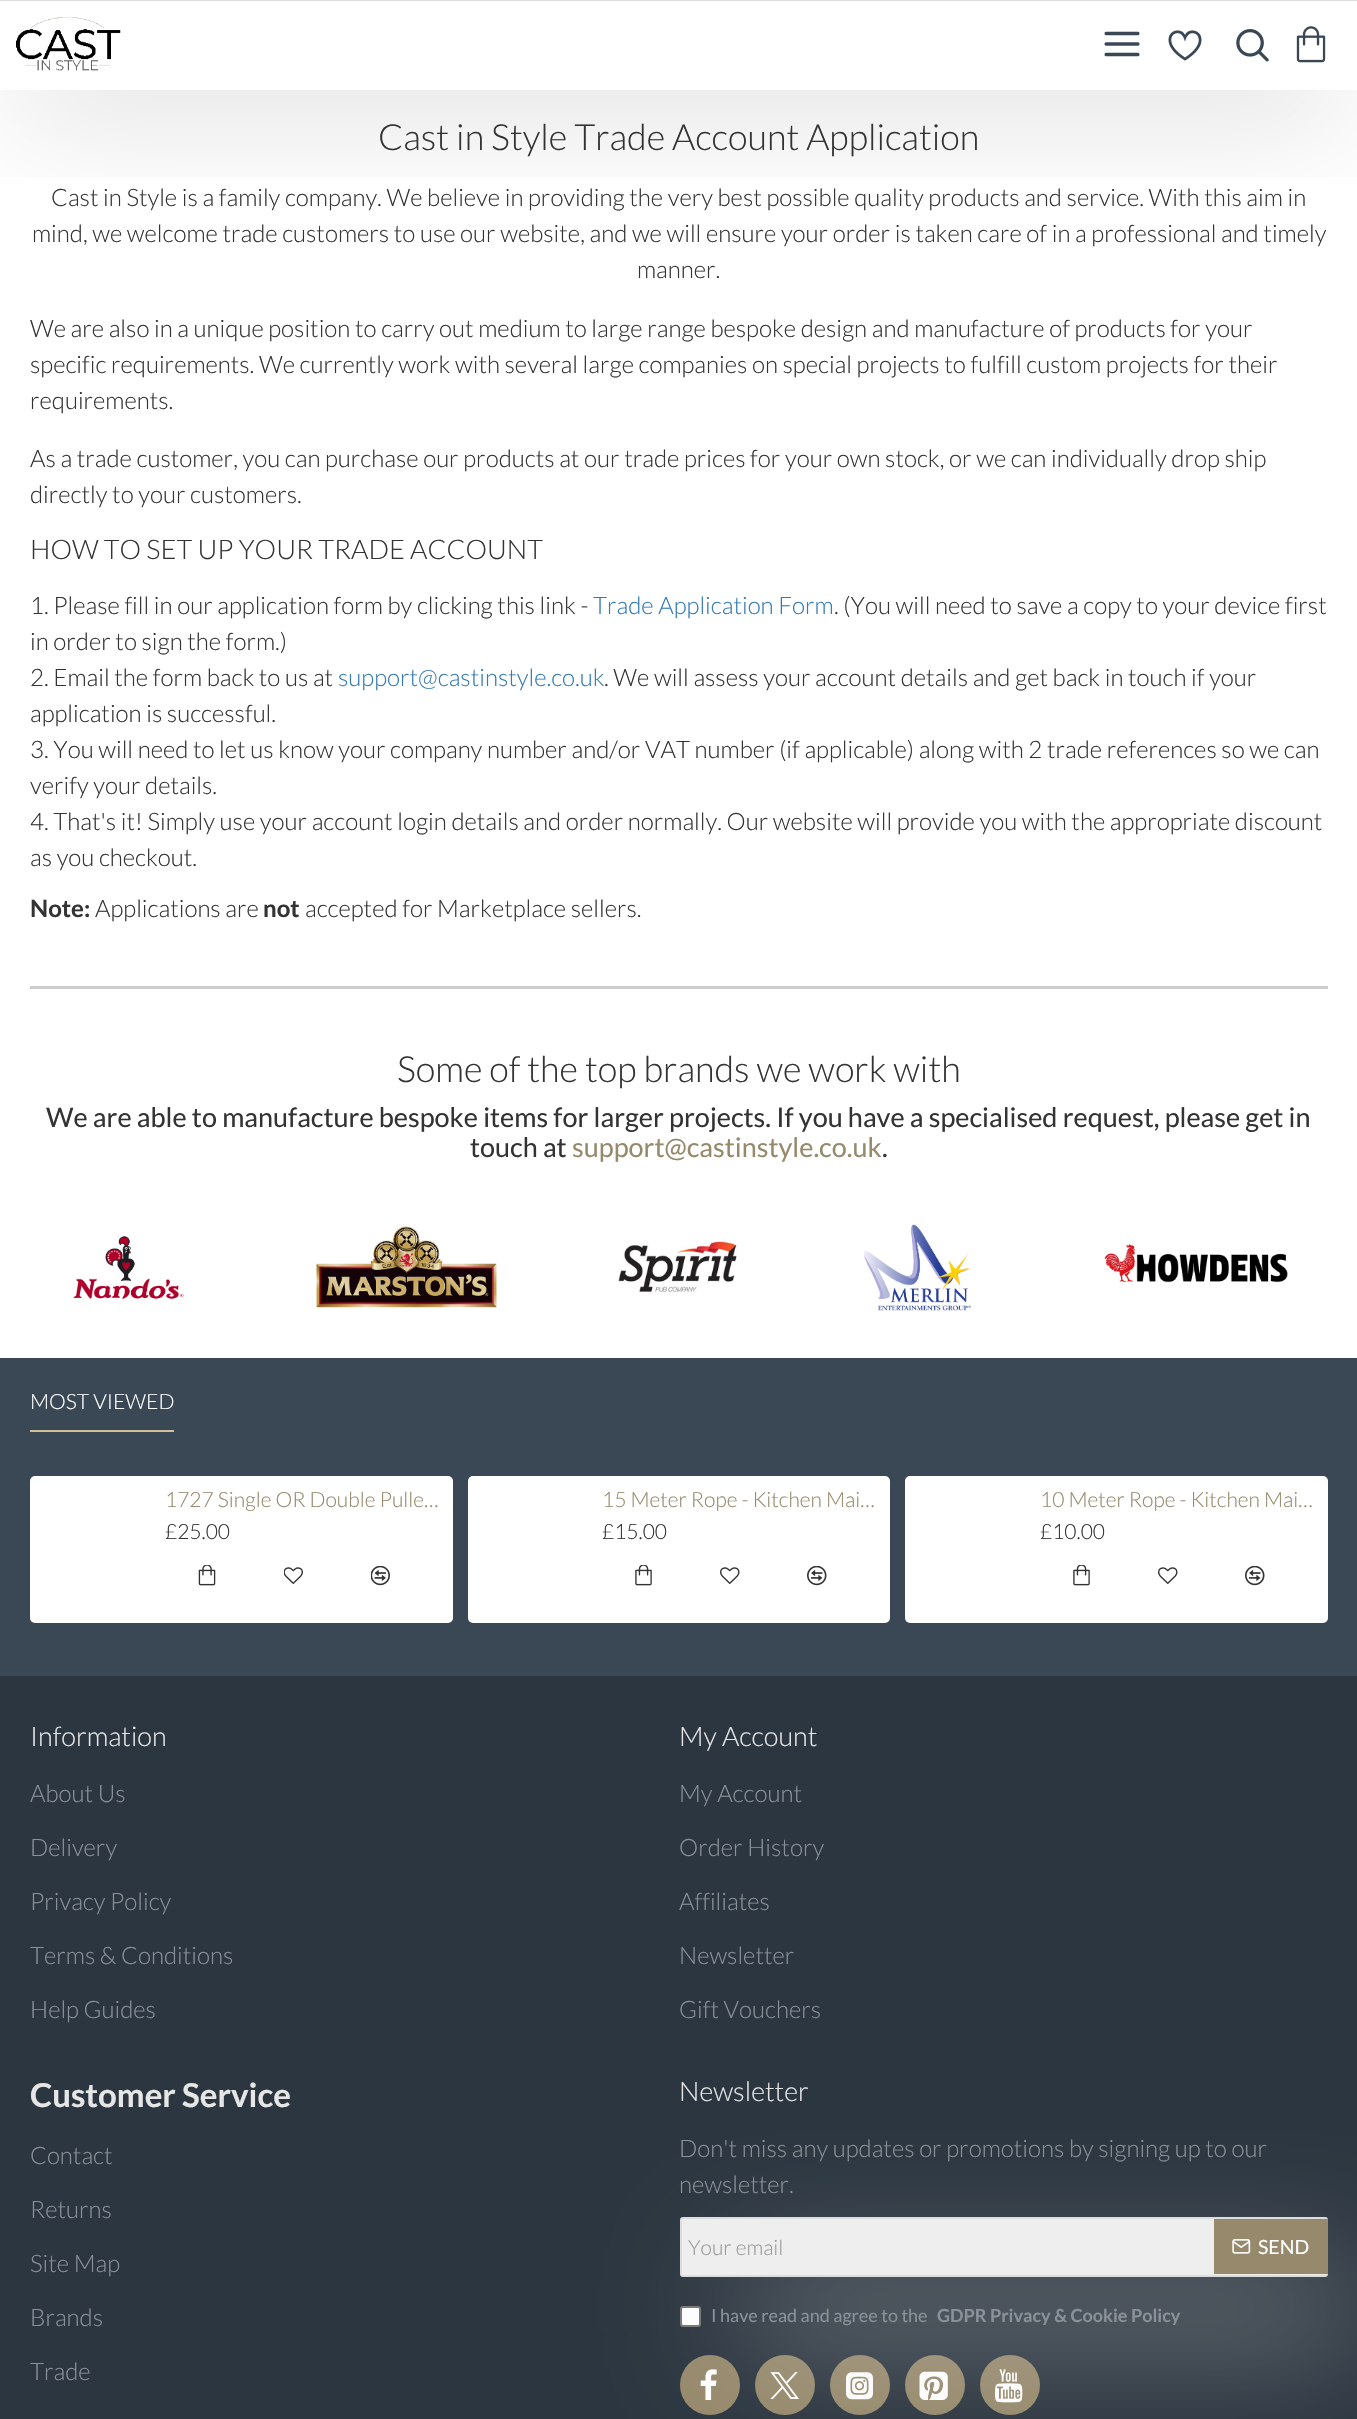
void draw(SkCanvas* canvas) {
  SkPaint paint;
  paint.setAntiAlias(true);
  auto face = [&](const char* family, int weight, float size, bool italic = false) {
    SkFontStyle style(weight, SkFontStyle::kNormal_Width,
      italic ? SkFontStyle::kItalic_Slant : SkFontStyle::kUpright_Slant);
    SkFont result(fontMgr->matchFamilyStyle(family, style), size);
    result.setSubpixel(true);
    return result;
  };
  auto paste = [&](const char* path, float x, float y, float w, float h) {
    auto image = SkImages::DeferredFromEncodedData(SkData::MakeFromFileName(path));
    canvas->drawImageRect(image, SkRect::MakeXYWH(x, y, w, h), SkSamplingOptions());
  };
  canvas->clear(0xffffffff);
  canvas->save();
  canvas->clipRect(SkRect::MakeXYWH(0, 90, 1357, 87));
  paint.setColor(0x33000000);
  paint.setMaskFilter(SkMaskFilter::MakeBlur(kNormal_SkBlurStyle, 67.5f));
  canvas->drawRect(SkRect::MakeXYWH(15, 38, 1328, 60), paint);
  paint.setMaskFilter(nullptr);
  canvas->restore();
  paste("img/1.png", 16, 17, 105, 54);
  paste("img/2.png", 1104, 31, 36, 26);
  paste("img/3.png", 1168, 30, 34, 31);
  paste("img/4.png", 1236, 29, 33, 33);
  paste("img/5.png", 1296, 26, 30, 37);
  paint.setColor(0xffdddddd);
  canvas->drawRect(SkRect::MakeXYWH(0, 0, 1357, 1), paint);
  paint.setColor(0xffcccccc);
  canvas->drawRect(SkRect::MakeXYWH(30, 986, 1298, 3), paint);
  paste("img/6.png", 73, 1236, 111, 63);
  paste("img/7.png", 316, 1225, 181, 83);
  paste("img/8.png", 618, 1239, 120, 54);
  paste("img/9.png", 863, 1224, 108, 87);
  paste("img/10.png", 1104, 1243, 184, 40);
  {
    const struct { float x, y, w, h; SkColor color; } items[] = {
      {0, 1676, 1357, 743, 0xff2c3640},
      {0, 1358, 1357, 318, 0xff3a4754},
      {30, 1430, 144, 2, 0xffd0bf99},
    };
    for (auto [x, y, w, h, color] : items) {
      paint.setColor(color);
      canvas->drawRect(SkRect::MakeXYWH(x, y, w, h), paint);
    }
  }
  paint.setColor(0xffffffff);
  canvas->drawRoundRect(SkRect::MakeXYWH(30, 1476, 423, 147), 5, 5, paint);
  paste("img/11.png", 198, 1565, 18, 21);
  paste("img/12.png", 284, 1567, 19, 17);
  paste("img/13.png", 371, 1566, 19, 20);
  canvas->drawRoundRect(SkRect::MakeXYWH(468, 1476, 422, 147), 5, 5, paint);
  paste("img/14.png", 635, 1565, 17, 21);
  paste("img/15.png", 720, 1567, 20, 17);
  paste("img/16.png", 807, 1566, 20, 20);
  canvas->drawRoundRect(SkRect::MakeXYWH(905, 1476, 423, 147), 5, 5, paint);
  paste("img/14.png", 1073, 1565, 17, 21);
  paste("img/15.png", 1158, 1567, 20, 17);
  paste("img/16.png", 1245, 1566, 20, 20);
  canvas->drawRoundRect(SkRect::MakeXYWH(681, 2307, 19, 19), 2, 2, paint);
  paint.setStroke(true);
  paint.setStrokeWidth(2);
  paint.setColor(0xff767676);
  canvas->drawRoundRect(SkRect::MakeXYWH(681, 2307, 19, 19), 2, 2, paint);
  paint.setStroke(false);
  paint.setColor(0xff96896c);
  canvas->drawCircle(710, 2385, 30, paint);
  paste("img/18.png", 700, 2369, 17, 31);
  canvas->drawCircle(785, 2385, 30, paint);
  paste("img/19.png", 770, 2372, 29, 27);
  canvas->drawCircle(860, 2385, 30, paint);
  paste("img/20.png", 846, 2372, 27, 28);
  canvas->drawCircle(935, 2385, 30, paint);
  paste("img/21.png", 919, 2371, 29, 29);
  canvas->drawCircle(1010, 2385, 30, paint);
  paste("img/22.png", 995, 2369, 28, 34);
  paint.setColor(0xffdddddd);
  paint.setMaskFilter(SkMaskFilter::MakeBlur(kNormal_SkBlurStyle, 67.5f));
  canvas->drawRect(SkRect::MakeXYWH(740, 2292, 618, 30), paint);
  paint.setMaskFilter(nullptr);
  paint.setColor(0xffeeeeee);
  canvas->drawRoundRect(SkRect::MakeXYWH(681, 2218, 646, 58), 2, 2, paint);
  paint.setStroke(true);
  paint.setColor(0xffdddddd);
  canvas->drawRoundRect(SkRect::MakeXYWH(681, 2218, 646, 58), 2, 2, paint);
  paint.setStroke(false);
  paint.setColor(0xff96896c);
  canvas->drawRect(SkRect::MakeXYWH(1214, 2219, 114, 55), paint);
  paste("img/17.png", 1232, 2239, 19, 15);
  auto f0 = face("Lato", 300, 36);
  paint.setColor(0xff333333);
  canvas->drawString("Cast in Style Trade Account Application", 378, 150, f0, paint);
  auto f1 = face("Lato", 300, 24);
  {
    const struct { const char* s; float x, y; } items[] = {
      {"Cast in Style is a family company. We believe in providing the very best possible quality products and service. With this aim in", 51, 206},
      {"mind, we welcome trade customers to use our website, and we will ensure your order is taken care of in a professional and timely", 32, 242},
      {"manner.", 637, 278},
      {"We are also in a unique position to carry out medium to large range bespoke design and manufacture of products for your", 30, 337},
      {"specific requirements. We currently work with several large companies on special projects to fulfill custom projects for their", 30, 373},
      {"requirements.", 30, 409},
      {"As a trade customer, you can purchase our products at our trade prices for your own stock, or we can individually drop ship", 30, 467},
      {"directly to your customers.", 30, 503},
    };
    for (auto [s, x, y] : items) {
      canvas->drawString(s, x, y, f1, paint);
    }
  }
  auto f2 = face("Lato", 300, 27);
  canvas->drawString("HOW TO SET UP YOUR TRADE ACCOUNT", 30, 559, f2, paint);
  canvas->drawString("1. Please fill in our application form by clicking this link -", 30, 614, f1, paint);
  paint.setColor(0xff337ab7);
  canvas->drawString("Trade Application Form", 593, 614, f1, paint);
  paint.setColor(0xff333333);
  {
    const struct { const char* s; float x, y; } items[] = {
      {". (You will need to save a copy to your device first", 834, 614},
      {"in order to sign the form.)", 30, 650},
      {"2. Email the form back to us at", 30, 686},
    };
    for (auto [s, x, y] : items) {
      canvas->drawString(s, x, y, f1, paint);
    }
  }
  paint.setColor(0xff337ab7);
  canvas->drawString("support@castinstyle.co.uk", 338, 686, f1, paint);
  paint.setColor(0xff333333);
  {
    const struct { const char* s; float x, y; } items[] = {
      {". We will assess your account details and get back in touch if your", 604, 686},
      {"application is successful.", 30, 722},
      {"3. You will need to let us know your company number and/or VAT number (if applicable) along with 2 trade references so we can", 30, 758},
      {"verify your details.", 30, 794},
      {"4. That's it! Simply use your account login details and order normally. Our website will provide you with the appropriate discount", 30, 830},
      {"as you checkout.", 30, 866},
    };
    for (auto [s, x, y] : items) {
      canvas->drawString(s, x, y, f1, paint);
    }
  }
  auto f3 = face("Lato", 700, 24);
  canvas->drawString("Note:", 30, 917, f3, paint);
  canvas->drawString("Applications are", 95, 917, f1, paint);
  canvas->drawString("not", 263, 917, f3, paint);
  canvas->drawString("accepted for Marketplace sellers.", 305, 917, f1, paint);
  canvas->drawString("Some of the top brands we work with", 397, 1082, f0, paint);
  auto f4 = face("Lato", 400, 27);
  canvas->drawString("We are able to manufacture bespoke items for larger projects. If you have a specialised request, please get in", 46, 1127, f4, paint);
  canvas->drawString("touch at", 470, 1157, f4, paint);
  paint.setColor(0xff96896c);
  canvas->drawString("support@castinstyle.co.uk", 572, 1157, f4, paint);
  paint.setColor(0xff333333);
  canvas->drawString(".", 882, 1157, f4, paint);
  auto f5 = face("Lato", 300, 21);
  paint.setColor(0xffffffff);
  canvas->drawString("MOST VIEWED", 30, 1409, f5, paint);
  paint.setColor(0xff96896c);
  canvas->drawString("1727 Single OR Double Pulle…", 165, 1507, f5, paint);
  paint.setColor(0xff333333);
  canvas->drawString("£25.00", 165, 1539, f5, paint);
  paint.setColor(0xff96896c);
  canvas->drawString("15 Meter Rope - Kitchen Mai…", 602, 1507, f5, paint);
  paint.setColor(0xff333333);
  canvas->drawString("£15.00", 602, 1539, f5, paint);
  paint.setColor(0xff96896c);
  canvas->drawString("10 Meter Rope - Kitchen Mai…", 1040, 1507, f5, paint);
  paint.setColor(0xff333333);
  canvas->drawString("£10.00", 1040, 1539, f5, paint);
  paint.setColor(0xffe6e6e6);
  canvas->drawString("Information", 30, 1746, f2, paint);
  paint.setColor(0xff8b9198);
  {
    const struct { const char* s; float x, y; } items[] = {
      {"About Us", 30, 1802},
      {"Delivery", 30, 1856},
      {"Privacy Policy", 30, 1910},
      {"Terms & Conditions", 30, 1964},
      {"Help Guides", 30, 2018},
    };
    for (auto [s, x, y] : items) {
      canvas->drawString(s, x, y, f1, paint);
    }
  }
  paint.setColor(0xffe6e6e6);
  canvas->drawString("My Account", 679, 1746, f2, paint);
  paint.setColor(0xff8b9198);
  {
    const struct { const char* s; float x, y; } items[] = {
      {"My Account", 679, 1802},
      {"Order History", 679, 1856},
      {"Affiliates", 679, 1910},
      {"Newsletter", 679, 1964},
      {"Gift Vouchers", 679, 2018},
    };
    for (auto [s, x, y] : items) {
      canvas->drawString(s, x, y, f1, paint);
    }
  }
  auto f6 = face("Lato", 700, 33);
  paint.setColor(0xffe6e6e6);
  canvas->drawString("Customer Service", 30, 2107, f6, paint);
  paint.setColor(0xff8b9198);
  {
    const struct { const char* s; float x, y; } items[] = {
      {"Contact", 30, 2164},
      {"Returns", 30, 2218},
      {"Site Map", 30, 2272},
      {"Brands", 30, 2326},
      {"Trade", 30, 2380},
    };
    for (auto [s, x, y] : items) {
      canvas->drawString(s, x, y, f1, paint);
    }
  }
  paint.setColor(0xffe6e6e6);
  canvas->drawString("Newsletter", 679, 2101, f2, paint);
  paint.setColor(0xff8b9198);
  canvas->drawString("Don't miss any updates or promotions by signing up to our", 679, 2157, f1, paint);
  canvas->drawString("newsletter.", 679, 2193, f1, paint);
  paint.setColor(0xff999999);
  canvas->drawString("Your email", 688, 2255, f5, paint);
  auto f7 = face("Lato", 400, 19.5f);
  paint.setColor(0xffffffff);
  canvas->drawString("SEND", 1258, 2254, f7, paint);
  auto f8 = face("Lato", 400, 18);
  paint.setColor(0xff8b9198);
  canvas->drawString("I have read and agree to the", 711, 2322, f8, paint);
  auto f9 = face("Lato", 700, 18);
  canvas->drawString("GDPR Privacy & Cookie Policy", 937, 2322, f9, paint);
}
